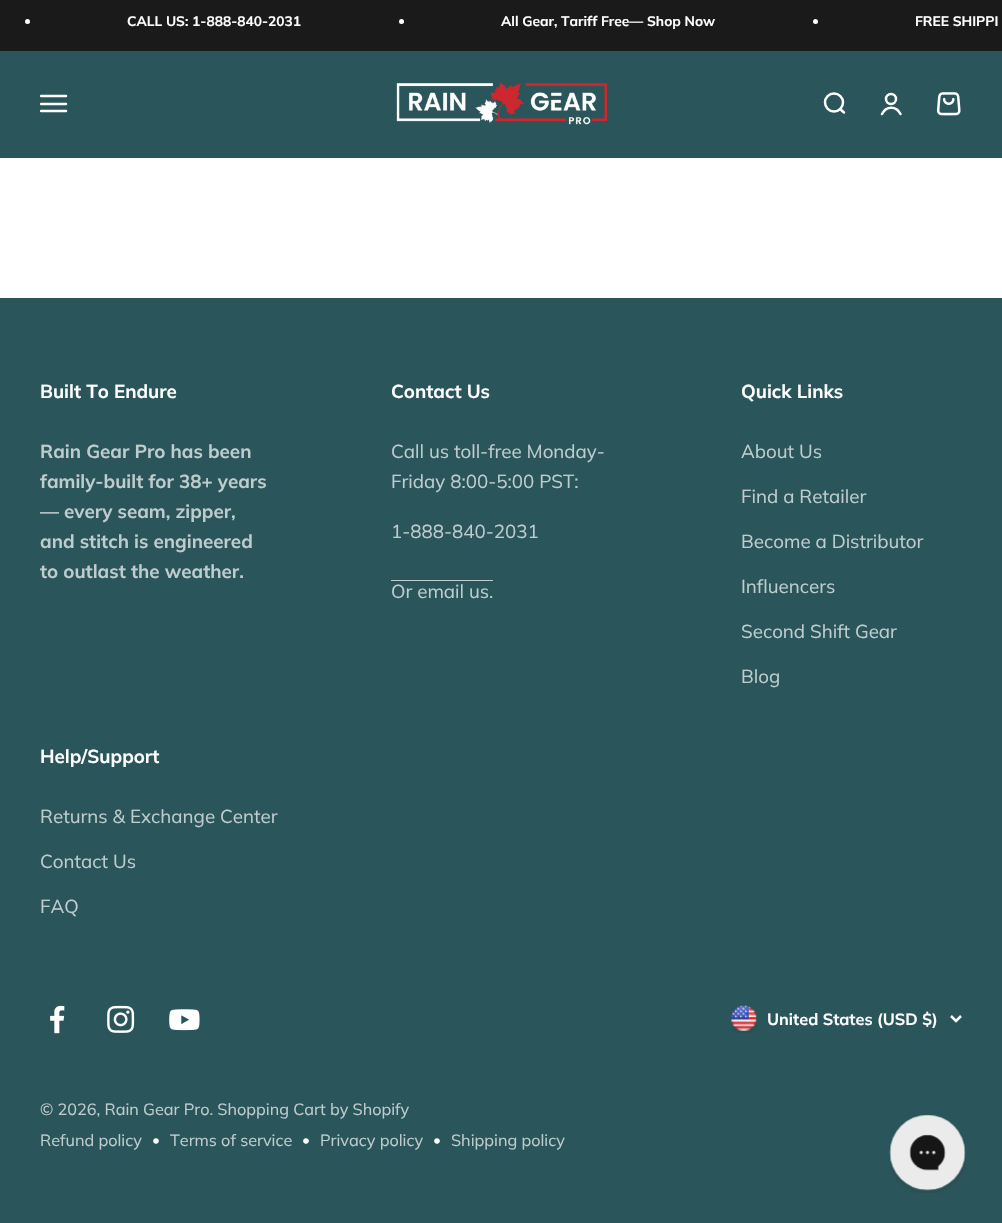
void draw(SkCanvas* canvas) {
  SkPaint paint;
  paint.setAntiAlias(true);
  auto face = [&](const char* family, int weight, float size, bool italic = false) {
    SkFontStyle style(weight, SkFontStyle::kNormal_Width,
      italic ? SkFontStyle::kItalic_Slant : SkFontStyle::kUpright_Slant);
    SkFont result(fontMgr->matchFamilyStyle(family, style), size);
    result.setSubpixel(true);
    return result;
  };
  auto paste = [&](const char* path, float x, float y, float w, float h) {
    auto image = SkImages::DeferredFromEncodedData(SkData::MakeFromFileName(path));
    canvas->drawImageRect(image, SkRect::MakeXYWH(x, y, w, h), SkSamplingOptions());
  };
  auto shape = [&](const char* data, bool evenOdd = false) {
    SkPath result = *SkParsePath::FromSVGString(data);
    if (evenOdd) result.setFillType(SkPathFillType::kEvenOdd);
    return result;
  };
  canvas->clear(0xffffffff);
  paint.setColor(0xff1a1a1a);
  canvas->drawRect(SkRect::MakeXYWH(0, 0, 1002, 51), paint);
  paint.setColor(0xffffffff);
  canvas->drawCircle(27.5f, 21.5f, 2.5f, paint);
  canvas->drawCircle(401.5f, 21.5f, 2.5f, paint);
  canvas->drawCircle(815.5f, 21.5f, 2.5f, paint);
  paint.setColor(0xff2a555a);
  canvas->drawRect(SkRect::MakeXYWH(0, 51, 1002, 107), paint);
  canvas->save();
  canvas->clipRect(SkRect::MakeXYWH(40, 90, 28, 28));
  paint.setStroke(true);
  paint.setStrokeWidth(2.5f);
  paint.setStrokeCap(SkPaint::kRound_Cap);
  paint.setColor(0xffffffff);
  canvas->drawPath(shape("M41 96H66M41 104H66M41 111H66"), paint);
  canvas->restore();
  paste("img/1.png", 396, 81, 212, 44);
  paint.setStrokeCap(SkPaint::kButt_Cap);
  canvas->drawCircle(834, 102.5f, 9, paint);
  paint.setStrokeCap(SkPaint::kRound_Cap);
  paint.setStrokeJoin(SkPaint::kRound_Join);
  canvas->drawPath(shape("M840 109L844 112.5"), paint);
  paint.setStrokeCap(SkPaint::kButt_Cap);
  paint.setStrokeJoin(SkPaint::kMiter_Join);
  canvas->drawCircle(891, 99, 5, paint);
  paint.setStrokeCap(SkPaint::kRound_Cap);
  canvas->drawPath(shape("M882 114C886 105.5 896.5 105.5 900.5 114"), paint);
  paste("img/2.png", 936, 92, 25, 24);
  paint.setStroke(false);
  paint.setColor(0xff2a555a);
  canvas->drawRect(SkRect::MakeXYWH(0, 298, 1002, 925), paint);
  paint.setColor(0xffbfccce);
  canvas->drawRect(SkRect::MakeXYWH(391, 580, 102, 1), paint);
  paste("img/3.png", 50, 1005, 15, 29);
  paste("img/4.png", 107, 1005, 28, 28);
  paste("img/5.png", 169, 1009, 31, 22);
  paste("img/6.png", 731, 1005, 26, 28);
  paint.setStroke(true);
  paint.setStrokeCap(SkPaint::kButt_Cap);
  paint.setColor(0xffffffff);
  canvas->drawPath(shape("M951 1016L956 1021L961 1016"), paint);
  paste("img/7.png", 889, 1114, 77, 79);
  auto f0 = face("Muli", 700, 13.75f);
  paint.setStroke(false);
  {
    const struct { const char* s; float x, y; } items[] = {
      {"CALL US: 1-888-840-2031", 127, 26},
      {"All Gear, Tariff Free— Shop Now", 501, 26},
      {"FREE SHIPPI", 915, 26},
    };
    for (auto [s, x, y] : items) {
      canvas->drawString(s, x, y, f0, paint);
    }
  }
  auto f1 = face("Muli", 700, 18.75f);
  canvas->drawString("Built To Endure", 40, 398, f1, paint);
  paint.setColor(0xffbfccce);
  {
    const struct { const char* s; float x, y; } items[] = {
      {"Rain Gear Pro has been", 40, 458},
      {"family-built for 38+ years", 40, 488},
      {"— every seam, zipper,", 40, 518},
      {"and stitch is engineered", 40, 548},
      {"to outlast the weather.", 40, 578},
    };
    for (auto [s, x, y] : items) {
      canvas->drawString(s, x, y, f1, paint);
    }
  }
  paint.setColor(0xffffffff);
  canvas->drawString("Contact Us", 391, 398, f1, paint);
  auto f2 = face("Muli", 400, 18.75f);
  paint.setColor(0xffbfccce);
  {
    const struct { const char* s; float x, y; } items[] = {
      {"Call us toll-free Monday-", 391, 458},
      {"Friday 8:00-5:00 PST:", 391, 488},
      {"1-888-840-2031", 391, 538},
      {"Or email us.", 391, 598},
    };
    for (auto [s, x, y] : items) {
      canvas->drawString(s, x, y, f2, paint);
    }
  }
  paint.setColor(0xffffffff);
  canvas->drawString("Quick Links", 741, 398, f1, paint);
  paint.setColor(0xffbfccce);
  {
    const struct { const char* s; float x, y; } items[] = {
      {"About Us", 741, 458},
      {"Find a Retailer", 741, 503},
      {"Become a Distributor", 741, 548},
      {"Influencers", 741, 593},
      {"Second Shift Gear", 741, 638},
      {"Blog", 741, 683},
    };
    for (auto [s, x, y] : items) {
      canvas->drawString(s, x, y, f2, paint);
    }
  }
  paint.setColor(0xffffffff);
  canvas->drawString("Help/Support", 40, 763, f1, paint);
  paint.setColor(0xffbfccce);
  {
    const struct { const char* s; float x, y; } items[] = {
      {"Returns & Exchange Center", 40, 823},
      {"Contact Us", 40, 868},
      {"FAQ", 40, 913},
    };
    for (auto [s, x, y] : items) {
      canvas->drawString(s, x, y, f2, paint);
    }
  }
  auto f3 = face("Muli", 700, 16.25f);
  paint.setColor(0xffffffff);
  canvas->drawString("United States (USD $)", 767, 1025, f3, paint);
  auto f4 = face("Muli", 400, 16.25f);
  paint.setColor(0xffbfccce);
  canvas->drawString("© 2026, Rain Gear Pro. Shopping Cart by Shopify", 40, 1115, f4, paint);
  canvas->drawString("Refund policy", 40, 1146, f4, paint);
  auto f5 = face("Muli", 400, 15);
  paint.setColor(0xffffffff);
  canvas->drawString("•", 152, 1145, f5, paint);
  paint.setColor(0xffbfccce);
  canvas->drawString("Terms of service", 170, 1146, f4, paint);
  paint.setColor(0xffffffff);
  canvas->drawString("•", 302, 1145, f5, paint);
  paint.setColor(0xffbfccce);
  canvas->drawString("Privacy policy", 320, 1146, f4, paint);
  paint.setColor(0xffffffff);
  canvas->drawString("•", 433, 1145, f5, paint);
  paint.setColor(0xffbfccce);
  canvas->drawString("Shipping policy", 451, 1146, f4, paint);
}
